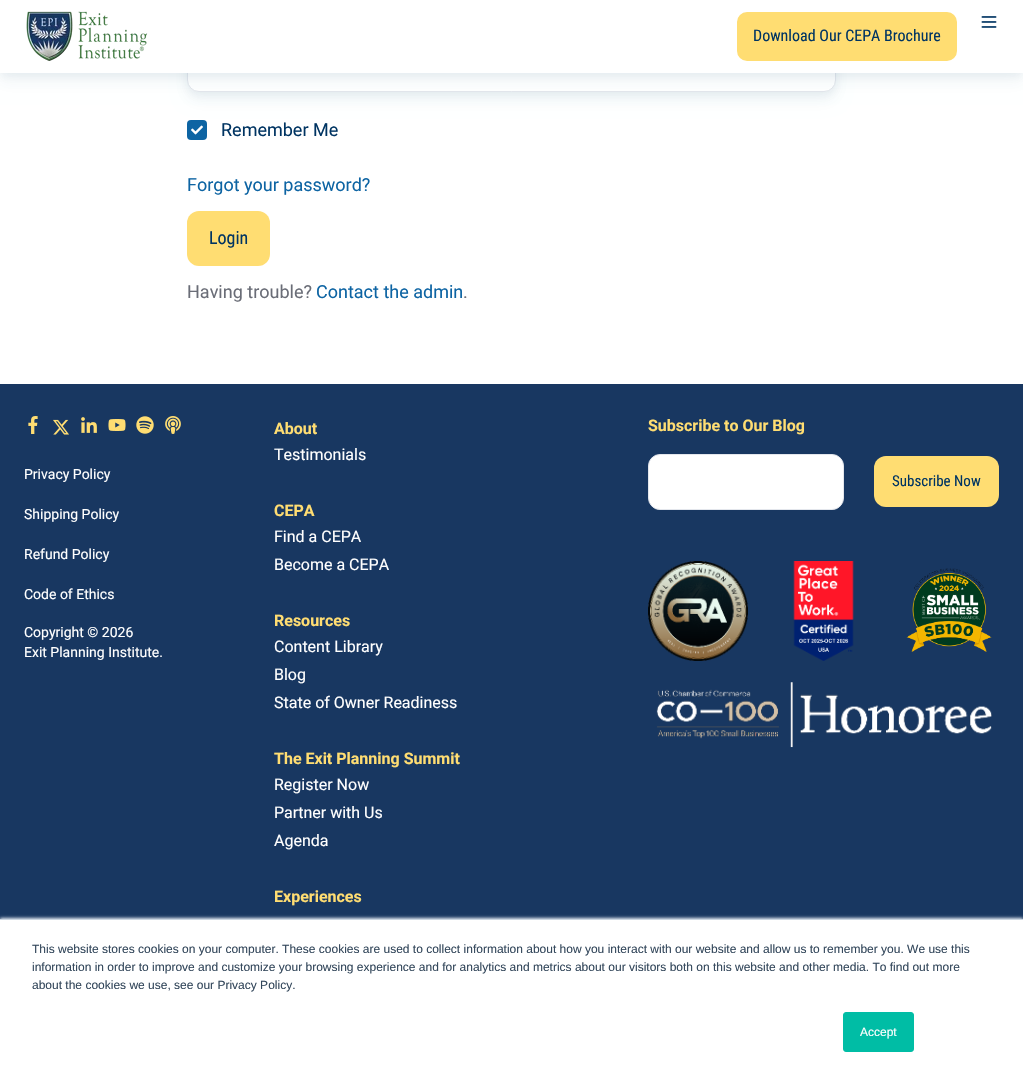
void draw(SkCanvas* canvas) {
  SkPaint paint;
  paint.setAntiAlias(true);
  auto face = [&](const char* family, int weight, float size, bool italic = false) {
    SkFontStyle style(weight, SkFontStyle::kNormal_Width,
      italic ? SkFontStyle::kItalic_Slant : SkFontStyle::kUpright_Slant);
    SkFont result(fontMgr->matchFamilyStyle(family, style), size);
    result.setSubpixel(true);
    return result;
  };
  auto paste = [&](const char* path, float x, float y, float w, float h) {
    auto image = SkImages::DeferredFromEncodedData(SkData::MakeFromFileName(path));
    canvas->drawImageRect(image, SkRect::MakeXYWH(x, y, w, h), SkSamplingOptions());
  };
  canvas->clear(0xffffffff);
  paint.setColor(0x0d003462);
  paint.setMaskFilter(SkMaskFilter::MakeBlur(kNormal_SkBlurStyle, 4));
  canvas->drawRoundRect(SkRect::MakeXYWH(187, 40, 649, 56), 12, 12, paint);
  paint.setMaskFilter(nullptr);
  paint.setMaskFilter(SkMaskFilter::MakeBlur(kNormal_SkBlurStyle, 8));
  canvas->drawRoundRect(SkRect::MakeXYWH(187, 44, 649, 56), 12, 12, paint);
  paint.setMaskFilter(nullptr);
  paint.setColor(0xffffffff);
  canvas->drawRoundRect(SkRect::MakeXYWH(187.5f, 36.5f, 648, 55), 11.5f, 11.5f, paint);
  paint.setStroke(true);
  paint.setStrokeWidth(1);
  paint.setColor(0xffe3e6ec);
  canvas->drawRoundRect(SkRect::MakeXYWH(187.5f, 36.5f, 648, 55), 11.5f, 11.5f, paint);
  paint.setStroke(false);
  paint.setColor(0x0d003462);
  paint.setMaskFilter(SkMaskFilter::MakeBlur(kNormal_SkBlurStyle, 4));
  canvas->drawRect(SkRect::MakeXYWH(0, 4, 1023, 73), paint);
  paint.setMaskFilter(nullptr);
  paint.setMaskFilter(SkMaskFilter::MakeBlur(kNormal_SkBlurStyle, 8));
  canvas->drawRect(SkRect::MakeXYWH(0, 8, 1023, 73), paint);
  paint.setMaskFilter(nullptr);
  paint.setColor(0xffffffff);
  canvas->drawRect(SkRect::MakeXYWH(0, 0, 1023, 73), paint);
  paste("img/1.png", 26, 11, 122, 50);
  paste("img/2.png", 981, 16, 16, 12);
  paint.setColor(0xffffdd72);
  canvas->drawRoundRect(SkRect::MakeXYWH(738, 13, 218, 47), 9, 9, paint);
  paint.setStroke(true);
  paint.setStrokeWidth(2);
  canvas->drawRoundRect(SkRect::MakeXYWH(738, 13, 218, 47), 9, 9, paint);
  paint.setStroke(false);
  paint.setColor(0xff0d64a3);
  canvas->drawRoundRect(SkRect::MakeXYWH(187, 120, 20, 20), 4, 4, paint);
  paste("img/3.png", 191, 125, 12, 10);
  paint.setColor(0xffffdd72);
  canvas->drawRoundRect(SkRect::MakeXYWH(187, 211, 83, 55), 12, 12, paint);
  paint.setColor(0xff183761);
  canvas->drawRect(SkRect::MakeXYWH(0, 384, 1023, 535), paint);
  paste("img/4.png", 28, 416, 10, 18);
  paste("img/5.png", 53, 419, 16, 16);
  paste("img/6.png", 81, 417, 16, 16);
  paste("img/7.png", 108, 419, 18, 12);
  paste("img/8.png", 136, 416, 18, 18);
  paste("img/9.png", 165, 416, 16, 18);
  paint.setColor(0xffffffff);
  canvas->drawRoundRect(SkRect::MakeXYWH(648.5f, 454.5f, 195, 55), 11.5f, 11.5f, paint);
  paint.setStroke(true);
  paint.setStrokeWidth(1);
  paint.setColor(0xffe3e6ec);
  canvas->drawRoundRect(SkRect::MakeXYWH(648.5f, 454.5f, 195, 55), 11.5f, 11.5f, paint);
  paint.setStroke(false);
  paint.setColor(0xffffdd72);
  canvas->drawRoundRect(SkRect::MakeXYWH(874, 456, 125, 51), 12, 12, paint);
  paste("img/10.png", 648, 561, 100, 100);
  paste("img/11.png", 793, 561, 61, 100);
  paste("img/12.png", 906, 568, 86, 84);
  paste("img/13.png", 656, 682, 336, 66);
  paint.setColor(0xffeaf0f6);
  paint.setMaskFilter(SkMaskFilter::MakeBlur(kNormal_SkBlurStyle, 1.5f));
  canvas->drawRect(SkRect::MakeXYWH(0, 918, 1023, 159), paint);
  paint.setMaskFilter(nullptr);
  paint.setColor(0xffffffff);
  canvas->drawRect(SkRect::MakeXYWH(0, 920, 1023, 158), paint);
  paint.setColor(0xffcbd6e2);
  canvas->drawRect(SkRect::MakeXYWH(0, 919, 1023, 1), paint);
  paint.setColor(0xff00bda5);
  canvas->drawRoundRect(SkRect::MakeXYWH(843.5f, 1012.5f, 70, 39), 2.5f, 2.5f, paint);
  paint.setStroke(true);
  canvas->drawRoundRect(SkRect::MakeXYWH(843.5f, 1012.5f, 70, 39), 2.5f, 2.5f, paint);
  auto f0 = face("Roboto Condensed", 400, 16);
  paint.setStroke(false);
  paint.setColor(0xff003462);
  canvas->drawString("Download Our CEPA Brochure", 753, 41, f0, paint);
  auto f1 = face("Roboto", 400, 18);
  canvas->drawString("Remember Me", 221, 136, f1, paint);
  paint.setColor(0xff0d64a3);
  canvas->drawString("Forgot your password?", 187, 191, f1, paint);
  auto f2 = face("Roboto Condensed", 400, 18);
  paint.setColor(0xff003462);
  canvas->drawString("Login", 209, 244, f2, paint);
  paint.setColor(0xff6a6d77);
  canvas->drawString("Having trouble?", 187, 298, f1, paint);
  paint.setColor(0xff0d64a3);
  canvas->drawString("Contact the admin", 316, 298, f1, paint);
  paint.setColor(0xff6a6d77);
  canvas->drawString(".", 463, 298, f1, paint);
  auto f3 = face("Roboto", 400, 14);
  paint.setColor(0xffffffff);
  {
    const struct { const char* s; float x, y; } items[] = {
      {"Privacy Policy", 24, 479},
      {"Shipping Policy", 24, 519},
      {"Refund Policy", 24, 559},
      {"Code of Ethics", 24, 599},
      {"Copyright © 2026", 24, 637},
      {"Exit Planning Institute.", 24, 657},
    };
    for (auto [s, x, y] : items) {
      canvas->drawString(s, x, y, f3, paint);
    }
  }
  auto f4 = face("Roboto", 700, 16);
  paint.setColor(0xffffdd72);
  canvas->drawString("About", 274, 434, f4, paint);
  auto f5 = face("Roboto", 400, 16);
  paint.setColor(0xffffffff);
  canvas->drawString("Testimonials", 274, 460, f5, paint);
  paint.setColor(0xffffdd72);
  canvas->drawString("CEPA", 274, 516, f4, paint);
  paint.setColor(0xffffffff);
  canvas->drawString("Find a CEPA", 274, 542, f5, paint);
  canvas->drawString("Become a CEPA", 274, 570, f5, paint);
  paint.setColor(0xffffdd72);
  canvas->drawString("Resources", 274, 626, f4, paint);
  paint.setColor(0xffffffff);
  {
    const struct { const char* s; float x, y; } items[] = {
      {"Content Library", 274, 652},
      {"Blog", 274, 680},
      {"State of Owner Readiness", 274, 708},
    };
    for (auto [s, x, y] : items) {
      canvas->drawString(s, x, y, f5, paint);
    }
  }
  paint.setColor(0xffffdd72);
  canvas->drawString("The Exit Planning Summit", 274, 764, f4, paint);
  paint.setColor(0xffffffff);
  {
    const struct { const char* s; float x, y; } items[] = {
      {"Register Now", 274, 790},
      {"Partner with Us", 274, 818},
      {"Agenda", 274, 846},
    };
    for (auto [s, x, y] : items) {
      canvas->drawString(s, x, y, f5, paint);
    }
  }
  paint.setColor(0xffffdd72);
  canvas->drawString("Experiences", 274, 902, f4, paint);
  canvas->drawString("Subscribe to Our Blog", 648, 431, f4, paint);
  auto f6 = face("Roboto Condensed", 400, 15);
  paint.setColor(0xff003462);
  canvas->drawString("Subscribe Now", 892, 486, f6, paint);
  auto f7 = face("Liberation Sans", 400, 12);
  paint.setColor(0xff33475b);
  {
    const struct { const char* s; float x, y; } items[] = {
      {"This website stores cookies on your computer. These cookies are used to collect information about how you interact with our website and allow us to remember you. We use this", 32, 953},
      {"information in order to improve and customize your browsing experience and for analytics and metrics about our visitors both on this website and other media. To find out more", 32, 971},
      {"about the cookies we use, see our Privacy Policy.", 32, 989},
    };
    for (auto [s, x, y] : items) {
      canvas->drawString(s, x, y, f7, paint);
    }
  }
  paint.setColor(0xffffffff);
  canvas->drawString("Accept", 860, 1036, f7, paint);
}
